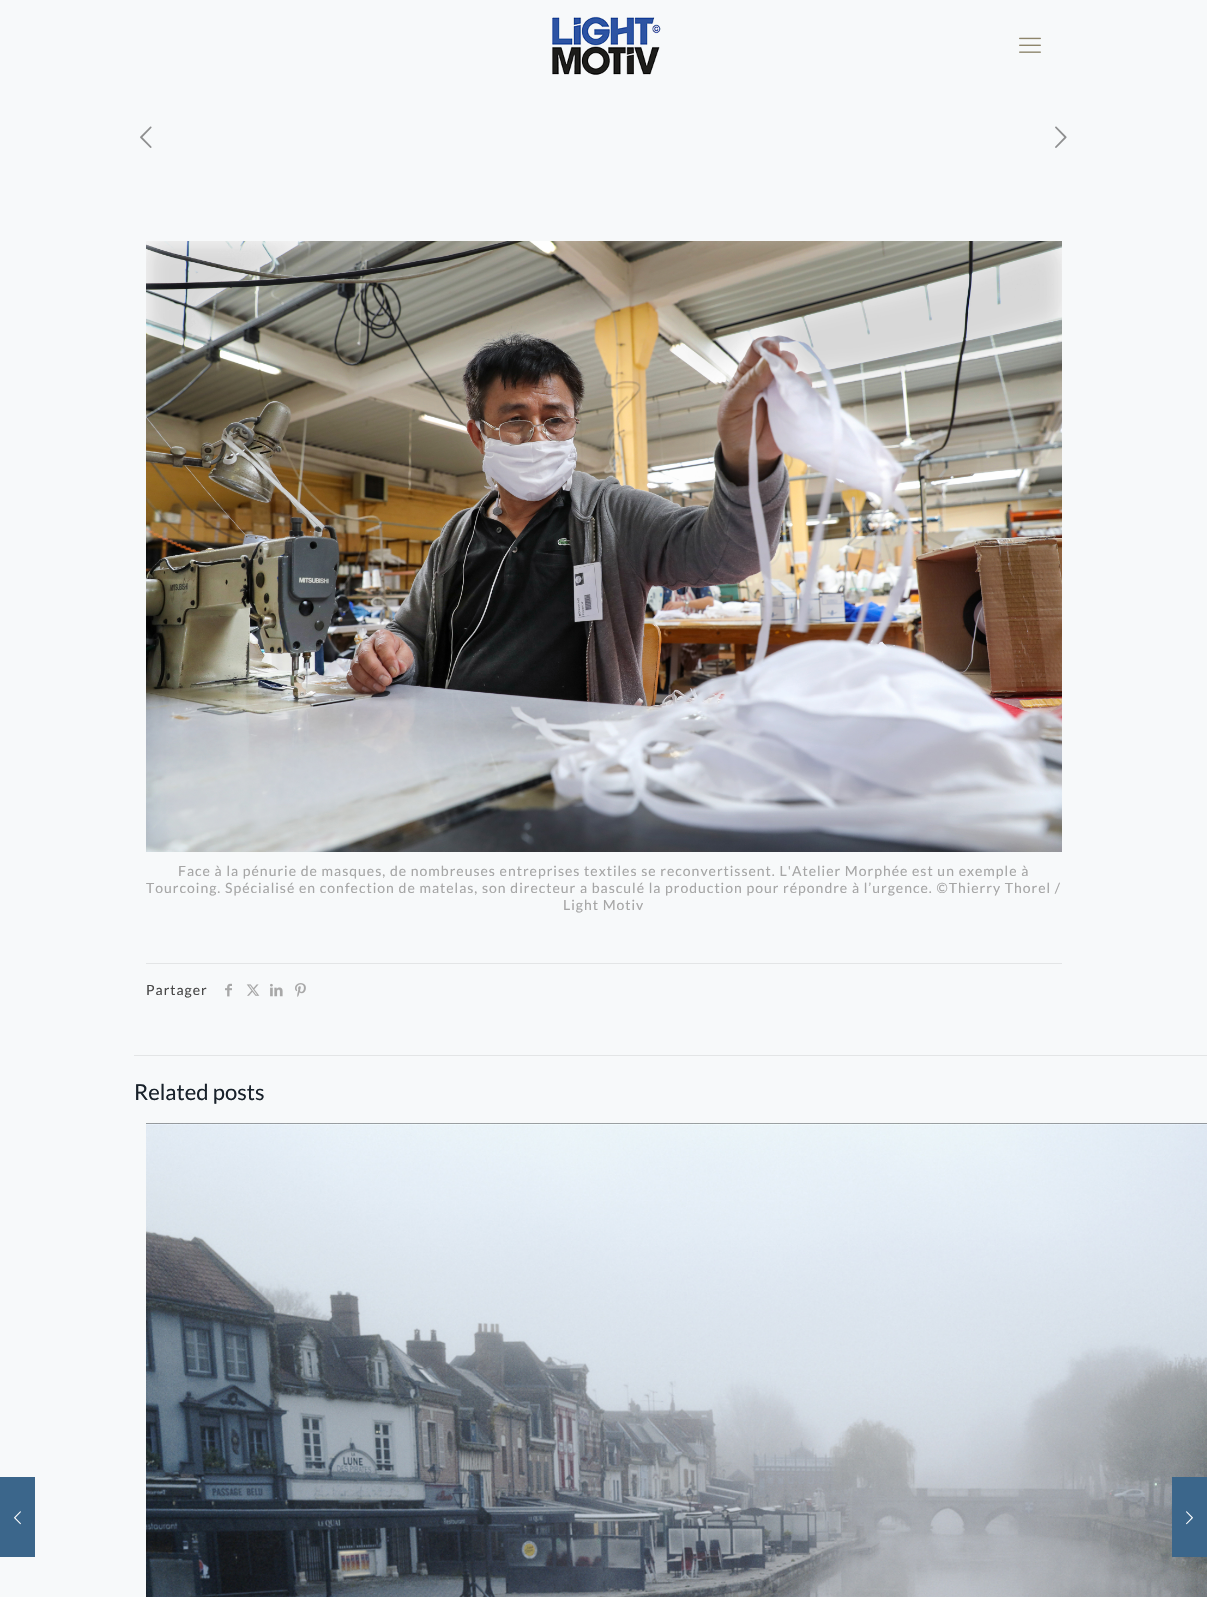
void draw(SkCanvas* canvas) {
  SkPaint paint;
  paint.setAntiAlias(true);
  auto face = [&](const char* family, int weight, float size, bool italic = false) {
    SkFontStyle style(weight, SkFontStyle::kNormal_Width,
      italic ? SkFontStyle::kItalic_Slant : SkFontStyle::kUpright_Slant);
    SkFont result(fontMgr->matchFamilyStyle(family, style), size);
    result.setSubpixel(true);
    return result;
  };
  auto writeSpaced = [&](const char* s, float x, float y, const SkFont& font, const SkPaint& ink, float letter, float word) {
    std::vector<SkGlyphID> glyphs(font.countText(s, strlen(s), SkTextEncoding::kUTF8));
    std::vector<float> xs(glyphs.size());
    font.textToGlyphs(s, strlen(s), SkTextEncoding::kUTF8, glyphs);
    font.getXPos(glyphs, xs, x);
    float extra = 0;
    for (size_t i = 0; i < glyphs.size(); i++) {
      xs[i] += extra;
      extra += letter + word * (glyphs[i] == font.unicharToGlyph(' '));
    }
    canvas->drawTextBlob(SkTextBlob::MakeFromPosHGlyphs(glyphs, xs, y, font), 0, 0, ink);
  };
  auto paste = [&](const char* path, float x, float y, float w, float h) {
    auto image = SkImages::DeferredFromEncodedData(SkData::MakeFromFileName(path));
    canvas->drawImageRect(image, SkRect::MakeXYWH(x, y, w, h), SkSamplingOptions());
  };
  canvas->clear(0xfff7f9fa);
  paste("img/1.png", 552, 16, 109, 59);
  paste("img/2.png", 1019, 37, 22, 16);
  paste("img/3.png", 140, 126, 12, 22);
  paste("img/4.png", 1055, 126, 12, 22);
  paste("img/5.png", 146, 241, 916, 611);
  paint.setColor(0xffe3e5e6);
  canvas->drawRect(SkRect::MakeXYWH(146, 963, 916, 1), paint);
  paste("img/6.png", 225, 983, 7, 14);
  paste("img/7.png", 246, 984, 14, 12);
  paste("img/8.png", 270, 983, 13, 14);
  paste("img/9.png", 295, 983, 11, 14);
  canvas->drawRect(SkRect::MakeXYWH(134, 1055, 1073, 1), paint);
  paste("img/10.png", 146, 1123, 1061, 474);
  paint.setColor(0xff3b668b);
  canvas->drawRect(SkRect::MakeXYWH(0, 1477, 35, 80), paint);
  paste("img/11.png", 14, 1511, 7, 14);
  canvas->drawRect(SkRect::MakeXYWH(1172, 1477, 35, 80), paint);
  paste("img/12.png", 1186, 1511, 7, 14);
  auto f0 = face("Lato", 400, 14);
  paint.setColor(0xffa6a6a6);
  {
    const struct { const char* s; float x, y; } items[] = {
      {"Face à la pénurie de masques, de nombreuses entreprises textiles se reconvertissent. L'Atelier Morphée est un exemple à", 178, 876},
      {"Tourcoing. Spécialisé en confection de matelas, son directeur a basculé la production pour répondre à l’urgence. ©Thierry Thorel /", 146, 893},
      {"Light Motiv", 563, 910},
    };
    for (auto [s, x, y] : items) {
      writeSpaced(s, x, y, f0, paint, 1, 0);
    }
  }
  paint.setColor(0xff474747);
  writeSpaced("Partager", 146, 995, f0, paint, 1, 0);
  auto f1 = face("Lato", 400, 22);
  paint.setColor(0xff19222b);
  canvas->drawString("Related posts", 134, 1100, f1, paint);
}
